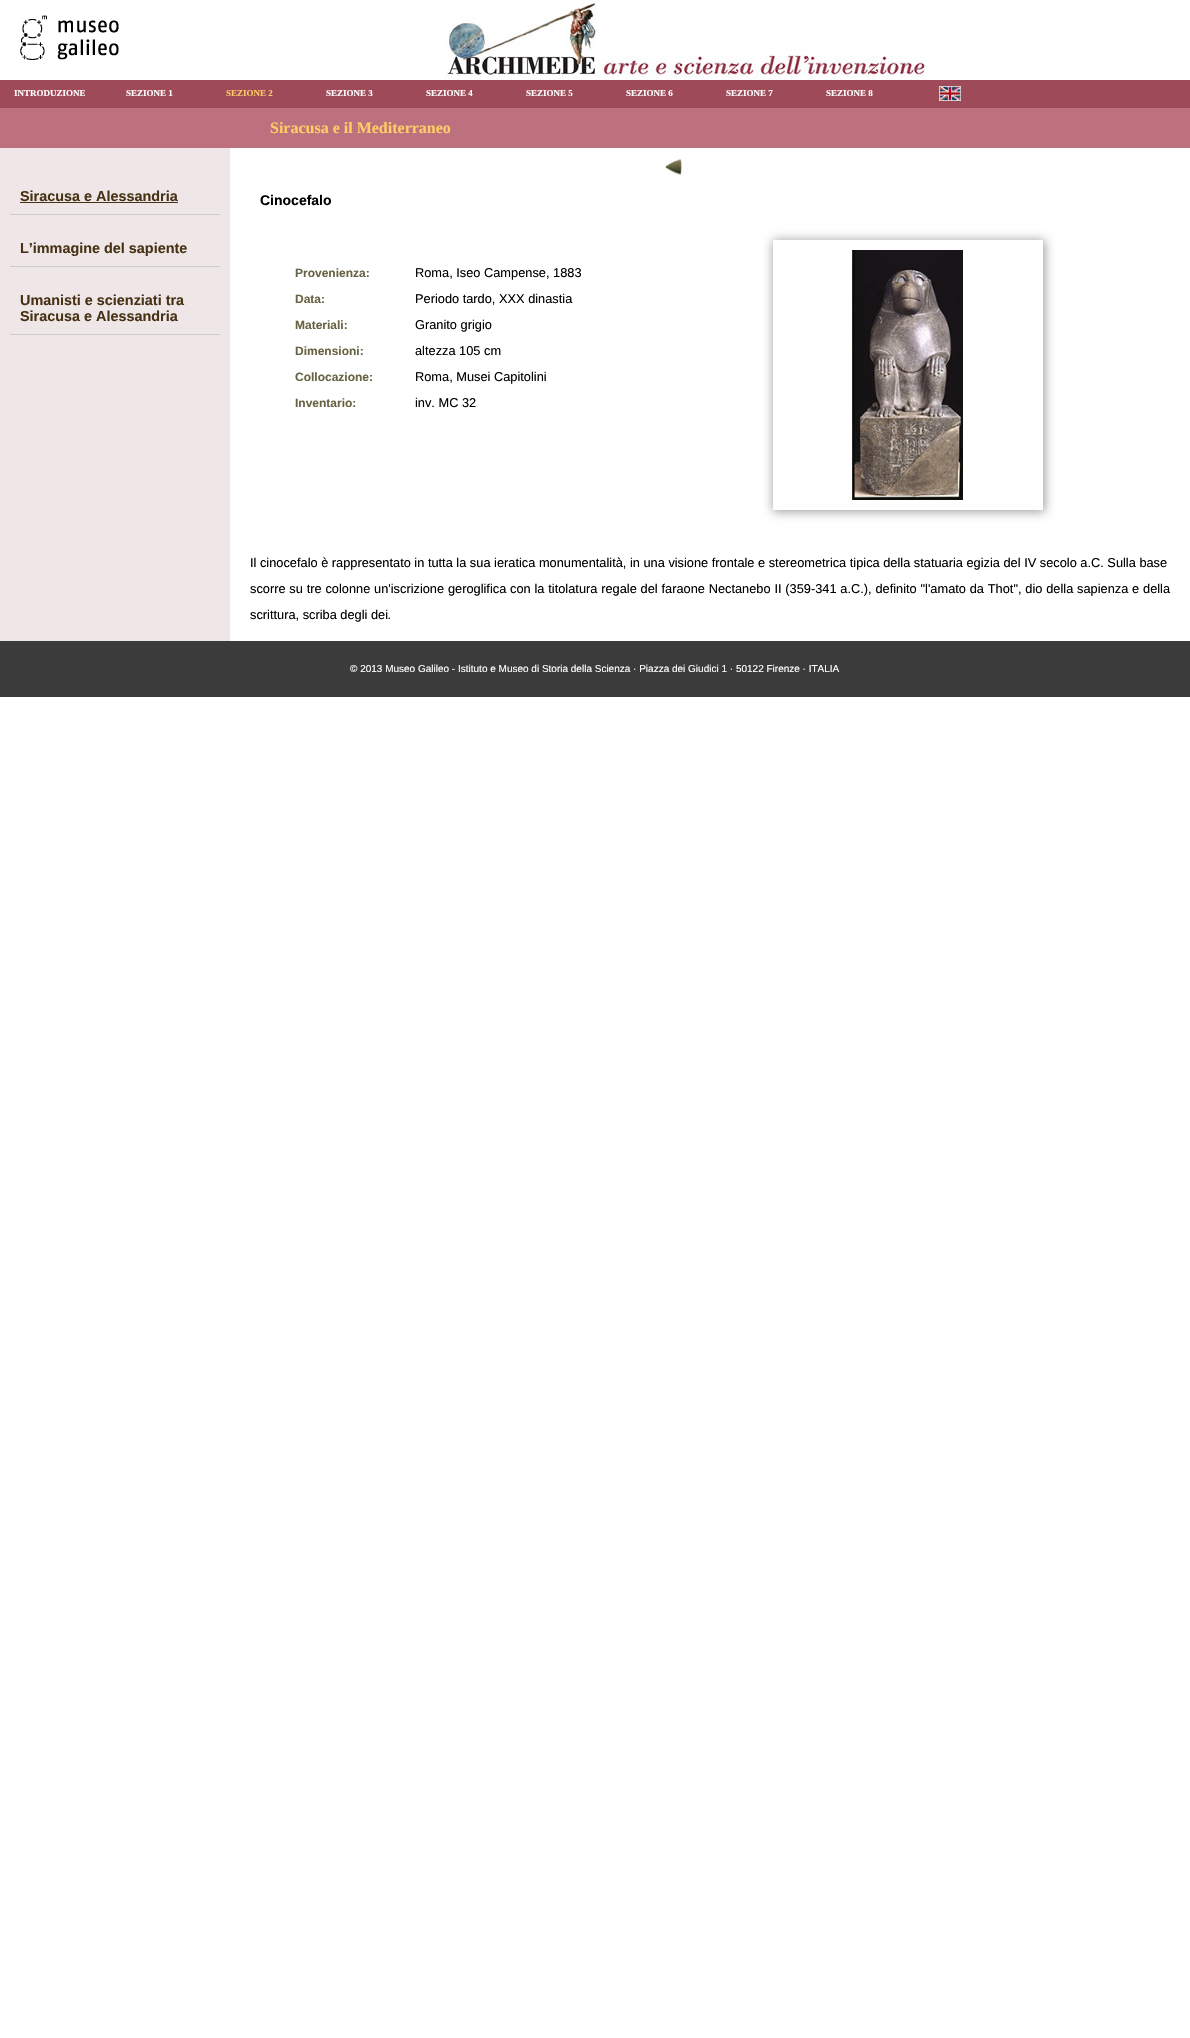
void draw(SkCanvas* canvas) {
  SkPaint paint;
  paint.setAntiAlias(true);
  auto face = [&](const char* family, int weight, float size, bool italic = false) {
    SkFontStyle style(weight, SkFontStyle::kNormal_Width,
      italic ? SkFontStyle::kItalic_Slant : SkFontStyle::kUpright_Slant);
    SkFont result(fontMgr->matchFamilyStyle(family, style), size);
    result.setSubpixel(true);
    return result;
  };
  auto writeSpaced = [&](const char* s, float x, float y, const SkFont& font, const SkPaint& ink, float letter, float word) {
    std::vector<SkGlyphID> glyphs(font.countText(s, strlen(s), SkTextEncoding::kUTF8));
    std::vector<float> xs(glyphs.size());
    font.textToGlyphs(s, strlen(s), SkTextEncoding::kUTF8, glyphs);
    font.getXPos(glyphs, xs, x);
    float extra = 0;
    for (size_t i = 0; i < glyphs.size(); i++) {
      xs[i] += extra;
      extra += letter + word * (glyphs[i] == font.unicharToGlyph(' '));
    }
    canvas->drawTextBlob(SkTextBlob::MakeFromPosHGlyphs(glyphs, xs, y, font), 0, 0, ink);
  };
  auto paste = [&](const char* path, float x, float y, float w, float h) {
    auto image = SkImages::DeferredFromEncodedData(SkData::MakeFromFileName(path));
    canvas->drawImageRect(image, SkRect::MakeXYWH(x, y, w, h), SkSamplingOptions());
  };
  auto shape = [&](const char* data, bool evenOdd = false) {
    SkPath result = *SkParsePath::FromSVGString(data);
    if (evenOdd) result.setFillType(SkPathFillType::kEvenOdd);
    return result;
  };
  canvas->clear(0xffffffff);
  paste("img/1.png", 20, 15, 99, 45);
  paste("img/2.png", 444, 0, 482, 80);
  {
    const struct { float x, y, w, h; SkColor color; } items[] = {
      {0, 148, 230, 493, 0xffefe6e7},
      {0, 80, 1190, 28, 0xff9e4a59},
      {0, 108, 1190, 40, 0xffbd717e},
    };
    for (auto [x, y, w, h, color] : items) {
      paint.setColor(color);
      canvas->drawRect(SkRect::MakeXYWH(x, y, w, h), paint);
    }
  }
  paste("img/3.png", 939, 86, 22, 15);
  {
    const struct { float x, y, w, h; SkColor color; } items[] = {
      {10, 214, 210, 1, 0xffcccccc},
      {20, 202, 158, 1, 0xff473215},
      {10, 266, 210, 1, 0xffcccccc},
      {10, 334, 210, 1, 0xffcccccc},
    };
    for (auto [x, y, w, h, color] : items) {
      paint.setColor(color);
      canvas->drawRect(SkRect::MakeXYWH(x, y, w, h), paint);
    }
  }
  paste("img/4.png", 665, 159, 17, 16);
  canvas->save();
  canvas->clipPath(shape("M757 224H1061V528H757ZM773 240H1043V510H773Z", true), true);
  paint.setColor(0xb3777777);
  paint.setMaskFilter(SkMaskFilter::MakeBlur(kNormal_SkBlurStyle, 5));
  canvas->drawRect(SkRect::MakeXYWH(773, 240, 272, 272), paint);
  paint.setMaskFilter(nullptr);
  canvas->restore();
  paste("img/5.png", 850, 250, 113, 250);
  paint.setColor(0xff3b3b3b);
  canvas->drawRect(SkRect::MakeXYWH(0, 641, 1190, 56), paint);
  auto f0 = face("Liberation Serif", 700, 9);
  paint.setColor(0xffffffff);
  canvas->drawString("INTRODUZIONE", 14, 96, f0, paint);
  canvas->drawString("SEZIONE 1", 126, 96, f0, paint);
  paint.setColor(0xffffcc66);
  canvas->drawString("SEZIONE 2", 226, 96, f0, paint);
  auto f1 = face("Liberation Serif", 700, 16);
  canvas->drawString("Siracusa e il Mediterraneo", 270, 133, f1, paint);
  paint.setColor(0xffffffff);
  {
    const struct { const char* s; float x, y; } items[] = {
      {"SEZIONE 8", 826, 96},
      {"SEZIONE 3", 326, 96},
      {"SEZIONE 4", 426, 96},
      {"SEZIONE 5", 526, 96},
      {"SEZIONE 6", 626, 96},
      {"SEZIONE 7", 726, 96},
    };
    for (auto [s, x, y] : items) {
      canvas->drawString(s, x, y, f0, paint);
    }
  }
  auto f2 = face("Liberation Sans", 700, 14.4f);
  paint.setColor(0xff473215);
  {
    const struct { const char* s; float x, y; } items[] = {
      {"Siracusa e Alessandria", 20, 201},
      {"L’immagine del sapiente", 20, 253},
      {"Umanisti e scienziati tra", 20, 305},
      {"Siracusa e Alessandria", 20, 321},
    };
    for (auto [s, x, y] : items) {
      canvas->drawString(s, x, y, f2, paint);
    }
  }
  auto f3 = face("Liberation Sans", 700, 14);
  paint.setColor(0xff000000);
  canvas->drawString("Cinocefalo", 260, 205, f3, paint);
  auto f4 = face("Liberation Sans", 700, 12);
  paint.setColor(0xff676242);
  canvas->drawString("Provenienza:", 295, 277, f4, paint);
  auto f5 = face("Liberation Sans", 400, 12.8f);
  paint.setColor(0xff000000);
  canvas->drawString("Roma, Iseo Campense, 1883", 415, 277, f5, paint);
  paint.setColor(0xff676242);
  canvas->drawString("Data:", 295, 303, f4, paint);
  paint.setColor(0xff000000);
  canvas->drawString("Periodo tardo, XXX dinastia", 415, 303, f5, paint);
  paint.setColor(0xff676242);
  canvas->drawString("Materiali:", 295, 329, f4, paint);
  paint.setColor(0xff000000);
  canvas->drawString("Granito grigio", 415, 329, f5, paint);
  paint.setColor(0xff676242);
  canvas->drawString("Dimensioni:", 295, 355, f4, paint);
  paint.setColor(0xff000000);
  canvas->drawString("altezza 105 cm", 415, 355, f5, paint);
  paint.setColor(0xff676242);
  canvas->drawString("Collocazione:", 295, 381, f4, paint);
  paint.setColor(0xff000000);
  canvas->drawString("Roma, Musei Capitolini", 415, 381, f5, paint);
  paint.setColor(0xff676242);
  canvas->drawString("Inventario:", 295, 407, f4, paint);
  paint.setColor(0xff000000);
  canvas->drawString("inv. MC 32", 415, 407, f5, paint);
  canvas->drawString("Il cinocefalo è rappresentato in tutta la sua ieratica monumentalità, in una visione frontale e stereometrica tipica della statuaria egizia del IV secolo a.C. Sulla base", 250, 567, f5, paint);
  writeSpaced("scorre su tre colonne un'iscrizione geroglifica con la titolatura regale del faraone Nectanebo II (359-341 a.C.), definito \"l'amato da Thot\", dio della sapienza e della", 250, 593, f5, paint, 0, 0.25f);
  canvas->drawString("scrittura, scriba degli dei", 250, 619, f5, paint);
  auto f6 = face("Liberation Sans", 400, 12.8f, true);
  canvas->drawString(".", 388, 619, f6, paint);
  auto f7 = face("Liberation Sans", 400, 10);
  paint.setColor(0xffffffff);
  canvas->drawString("© 2013 Museo Galileo - Istituto e Museo di Storia della Scienza · Piazza dei Giudici 1 · 50122 Firenze · ITALIA", 350, 672, f7, paint);
}
